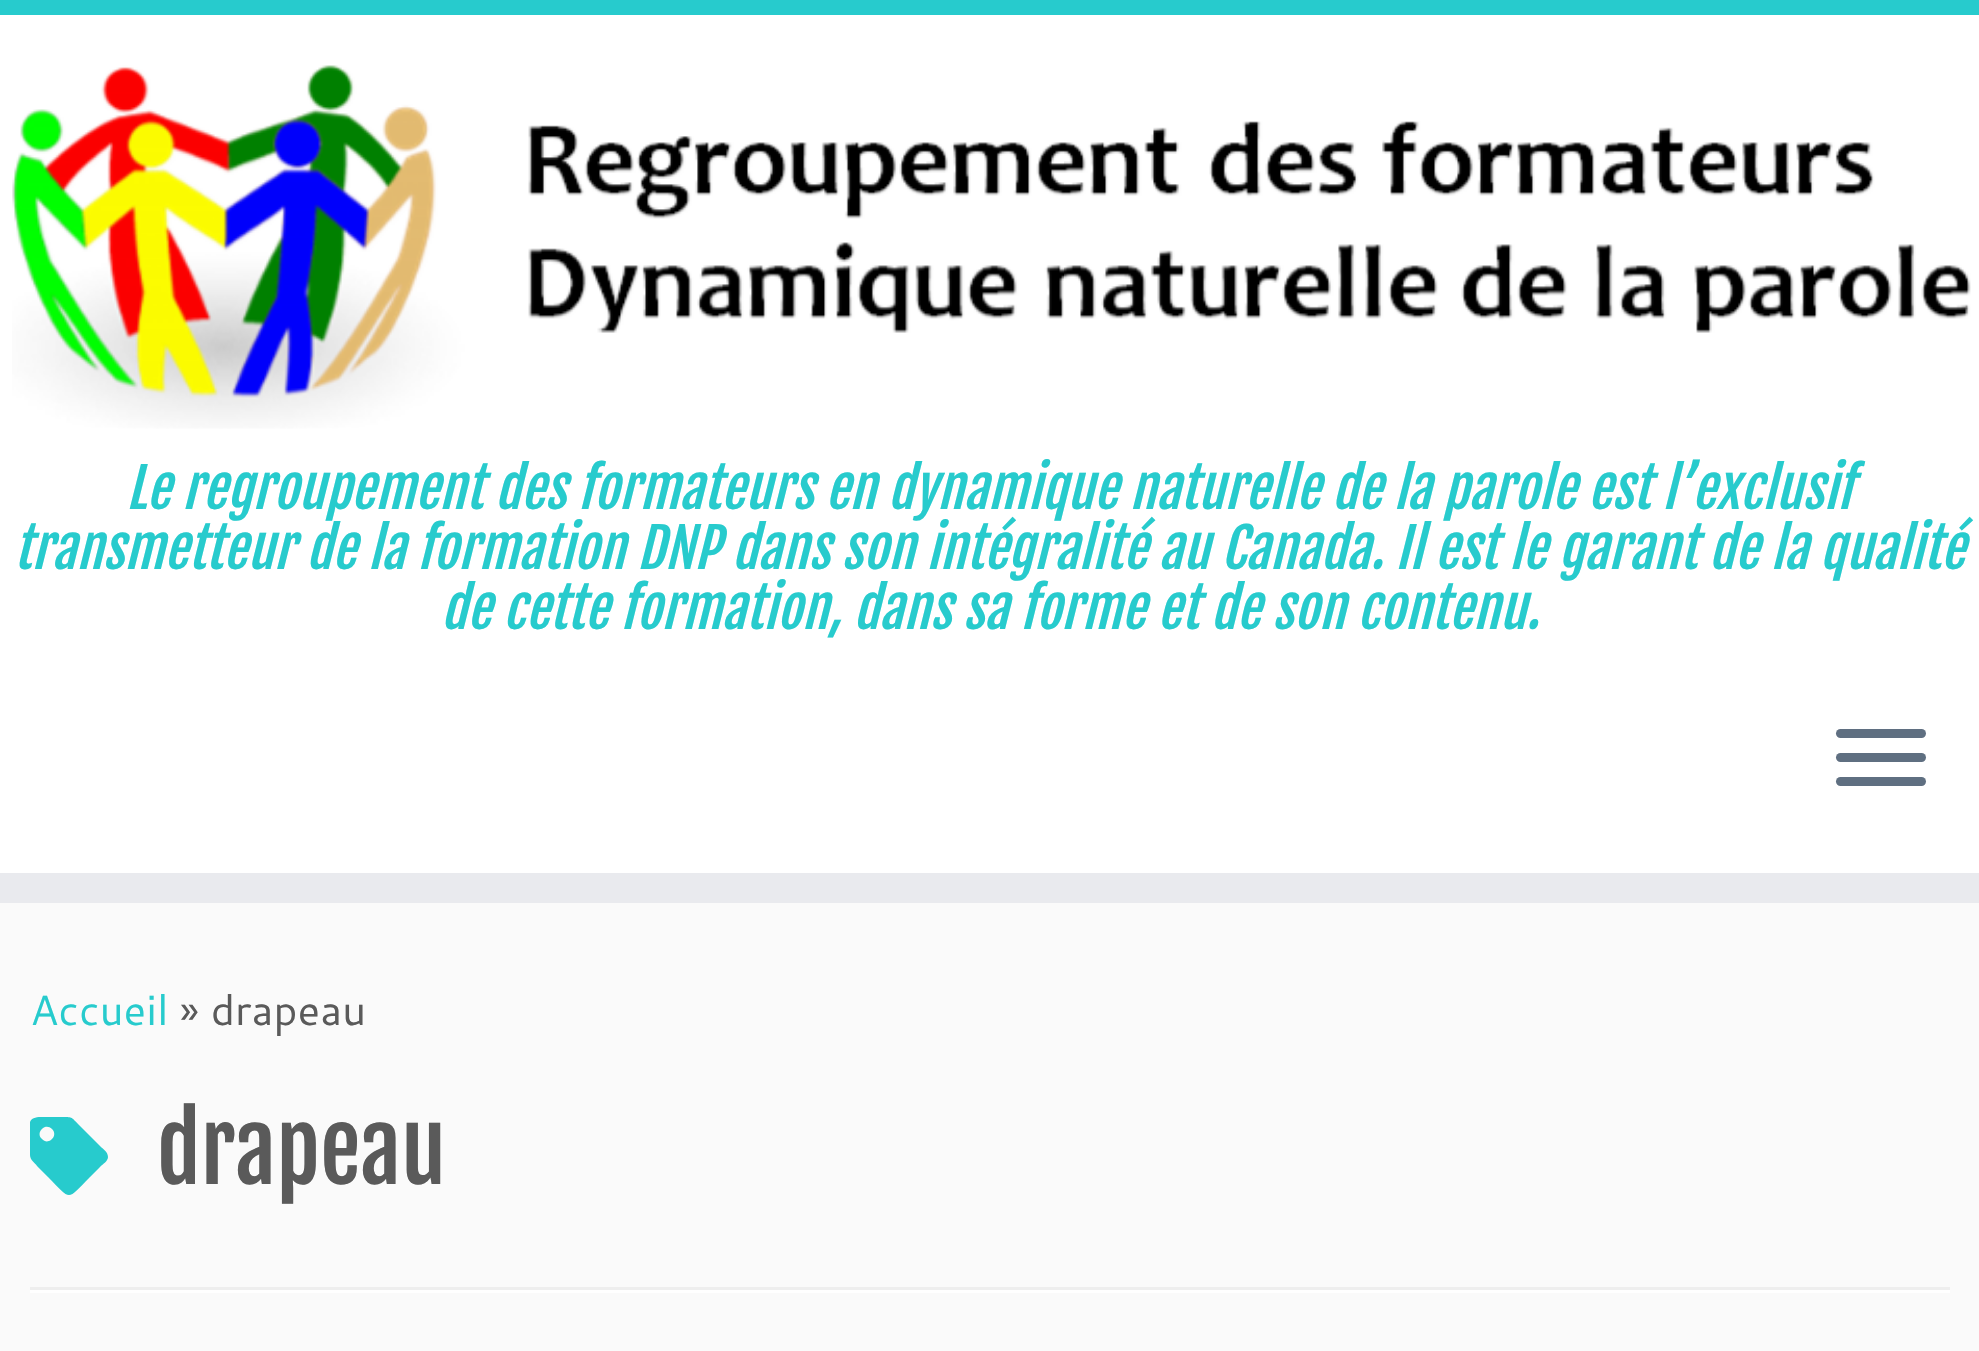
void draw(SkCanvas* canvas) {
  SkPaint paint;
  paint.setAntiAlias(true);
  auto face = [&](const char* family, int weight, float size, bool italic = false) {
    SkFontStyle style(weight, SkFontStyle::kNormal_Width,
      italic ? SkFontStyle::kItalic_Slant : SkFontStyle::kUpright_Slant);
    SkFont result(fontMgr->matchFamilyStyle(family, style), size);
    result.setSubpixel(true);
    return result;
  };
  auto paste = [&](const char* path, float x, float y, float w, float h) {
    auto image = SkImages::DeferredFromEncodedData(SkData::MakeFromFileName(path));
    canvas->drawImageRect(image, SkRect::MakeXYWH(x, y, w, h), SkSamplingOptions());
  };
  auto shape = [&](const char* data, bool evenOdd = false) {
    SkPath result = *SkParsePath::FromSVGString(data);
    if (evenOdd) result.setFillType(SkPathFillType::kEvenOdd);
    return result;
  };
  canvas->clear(0xfffafafa);
  {
    const struct { float x, y, w, h; SkColor color; } items[] = {
      {0, 15, 1979, 858, 0xffffffff},
      {0, 0, 1979, 15, 0xff27cbcd},
      {0, 873, 1979, 30, 0xffe9eaee},
    };
    for (auto [x, y, w, h, color] : items) {
      paint.setColor(color);
      canvas->drawRect(SkRect::MakeXYWH(x, y, w, h), paint);
    }
  }
  paste("img/1.png", 12, 65, 1959, 364);
  paint.setColor(0xff5f6f81);
  canvas->drawRoundRect(SkRect::MakeXYWH(1836, 729, 90, 9), 4.5f, 4.5f, paint);
  canvas->drawRoundRect(SkRect::MakeXYWH(1836, 753, 90, 9), 4.5f, 4.5f, paint);
  canvas->drawRoundRect(SkRect::MakeXYWH(1836, 777, 90, 9), 4.5f, 4.5f, paint);
  paint.setColor(0xff27cbcd);
  canvas->drawPath(shape("M30 1155V1122C32 1117 38 1117 42 1117H63C73 1117 71 1117 79 1125L100 1146C103 1149 108 1152 108 1157C108 1161 103 1164 100 1167L90 1177C66 1201 72 1201 48 1177L37 1166C35 1163 30 1160 30 1155ZM52 1129C45 1122 35 1133 42 1139C48 1146 59 1136 52 1129Z"), paint);
  paint.setColor(0xffeeeeee);
  canvas->drawRect(SkRect::MakeXYWH(30, 1287, 1920, 3), paint);
  paint.setColor(0xffffffff);
  canvas->drawRect(SkRect::MakeXYWH(30, 1290, 1920, 3), paint);
  auto f0 = face("Fjalla One", 400, 54, true);
  paint.setColor(0xff27cbcd);
  {
    const struct { const char* s; float x, y; } items[] = {
      {"Le regroupement des formateurs en dynamique naturelle de la parole est l’exclusif", 126, 509},
      {"transmetteur de la formation DNP dans son intégralité au Canada. Il est le garant de la qualité", 14, 569},
      {"de cette formation, dans sa forme et de son contenu.", 441, 629},
    };
    for (auto [s, x, y] : items) {
      canvas->drawString(s, x, y, f0, paint);
    }
  }
  auto f1 = face("Cantarell", 400, 42);
  canvas->drawString("Accueil", 30, 1025, f1, paint);
  paint.setColor(0xff5a5a5a);
  canvas->drawString("» drapeau", 180, 1025, f1, paint);
  auto f2 = face("Fjalla One", 400, 91);
  canvas->drawString("drapeau", 157, 1184, f2, paint);
}
